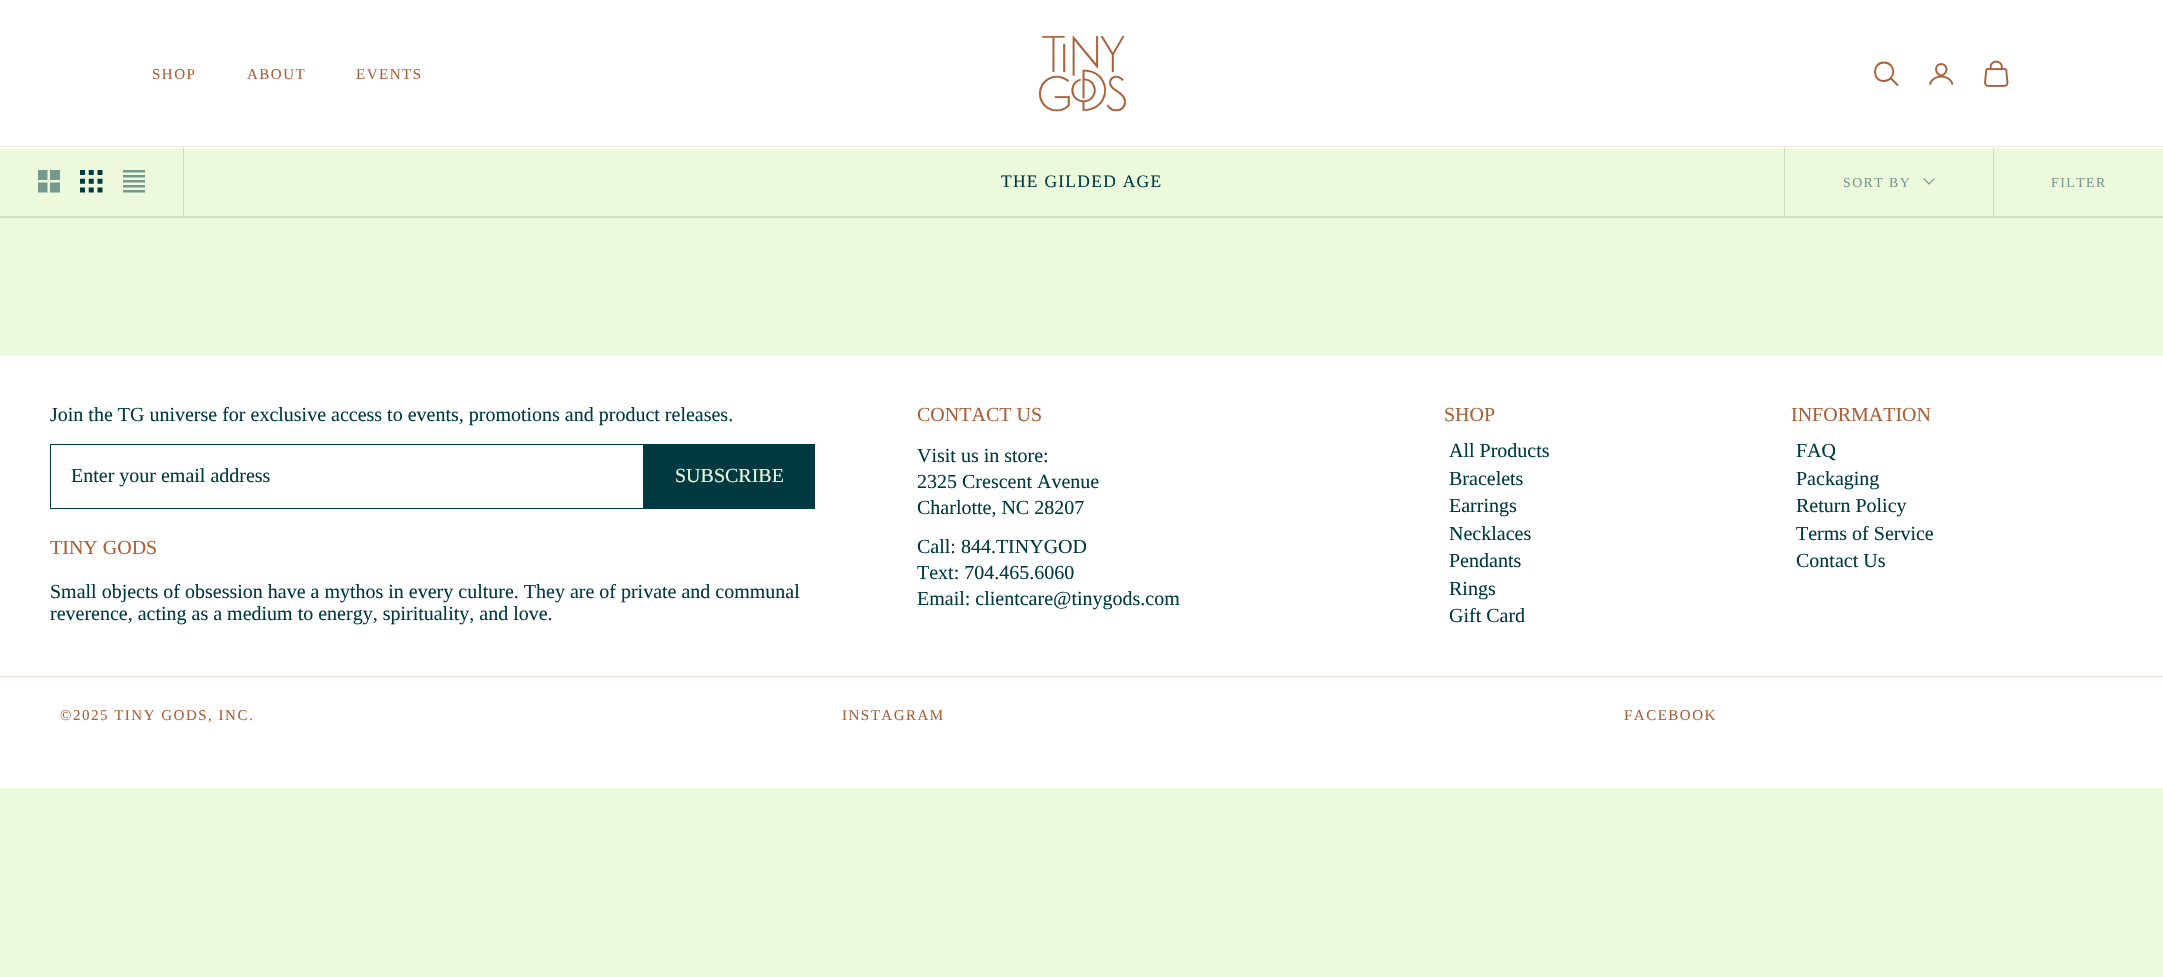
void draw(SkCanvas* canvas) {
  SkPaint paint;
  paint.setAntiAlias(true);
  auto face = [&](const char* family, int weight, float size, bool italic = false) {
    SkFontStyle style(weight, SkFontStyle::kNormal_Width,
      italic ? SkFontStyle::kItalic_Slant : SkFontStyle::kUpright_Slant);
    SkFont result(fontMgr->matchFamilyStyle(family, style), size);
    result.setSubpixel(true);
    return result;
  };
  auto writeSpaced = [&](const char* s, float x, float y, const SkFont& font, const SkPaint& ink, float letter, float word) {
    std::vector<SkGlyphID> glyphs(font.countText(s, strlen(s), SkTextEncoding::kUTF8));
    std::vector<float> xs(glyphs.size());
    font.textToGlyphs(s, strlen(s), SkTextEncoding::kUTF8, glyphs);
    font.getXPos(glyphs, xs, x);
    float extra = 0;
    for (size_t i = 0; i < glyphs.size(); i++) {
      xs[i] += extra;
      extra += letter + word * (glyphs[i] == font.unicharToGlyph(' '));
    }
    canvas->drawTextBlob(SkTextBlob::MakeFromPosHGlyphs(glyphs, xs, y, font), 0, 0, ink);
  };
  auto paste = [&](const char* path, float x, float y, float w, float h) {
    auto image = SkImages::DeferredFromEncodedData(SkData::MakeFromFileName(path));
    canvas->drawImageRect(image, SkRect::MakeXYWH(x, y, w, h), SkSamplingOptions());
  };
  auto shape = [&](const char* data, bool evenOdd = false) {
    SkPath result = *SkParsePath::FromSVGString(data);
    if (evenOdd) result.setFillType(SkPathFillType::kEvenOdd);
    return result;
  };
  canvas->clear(0xffedf9db);
  paint.setColor(0xffffffff);
  canvas->drawRect(SkRect::MakeXYWH(0, 0, 2163, 148), paint);
  paint.setColor(0xfff2e7e1);
  canvas->drawRect(SkRect::MakeXYWH(0, 146, 2163, 1), paint);
  paste("img/1.png", 1038, 35, 89, 77);
  paint.setStroke(true);
  paint.setStrokeWidth(1.9f);
  paint.setColor(0xffa96039);
  canvas->drawPath(shape("M1884 62.5C1872 62.5 1872 81.5 1884 81C1896.5 80.5 1896 62.5 1884 62.5Z"), paint);
  paint.setStrokeCap(SkPaint::kRound_Cap);
  canvas->drawPath(shape("M1891 78.5L1897.5 85"), paint);
  paste("img/2.png", 1929, 63, 25, 22);
  paste("img/3.png", 1984, 60, 25, 27);
  paint.setStroke(false);
  paint.setColor(0xffc9dcc4);
  canvas->drawPath(shape("M0 216V218H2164V149V216Z"), paint);
  canvas->drawRect(SkRect::MakeXYWH(183, 148, 1, 68), paint);
  paste("img/4.png", 38, 170, 22, 23);
  paste("img/5.png", 80, 170, 23, 23);
  paste("img/6.png", 123, 170, 22, 23);
  canvas->drawRect(SkRect::MakeXYWH(1784, 148, 1, 68), paint);
  paint.setStroke(true);
  paint.setStrokeWidth(1.2f);
  paint.setStrokeCap(SkPaint::kSquare_Cap);
  paint.setColor(0xff779a8e);
  canvas->drawPath(shape("M1924 179L1929 184L1934 179"), paint);
  paint.setStroke(false);
  paint.setColor(0xffc9dcc4);
  canvas->drawRect(SkRect::MakeXYWH(1993, 148, 1, 68), paint);
  paint.setColor(0xffffffff);
  canvas->drawRect(SkRect::MakeXYWH(0, 356, 2163, 320), paint);
  paint.setStroke(true);
  paint.setStrokeWidth(1);
  paint.setStrokeCap(SkPaint::kButt_Cap);
  paint.setColor(0xff003a40);
  canvas->drawRect(SkRect::MakeXYWH(50.5f, 444.5f, 593, 64), paint);
  paint.setStroke(false);
  {
    const struct { float x, y, w, h; SkColor color; } items[] = {
      {644, 444, 171, 65, 0xff003a40},
      {0, 678, 2163, 110, 0xffffffff},
      {0, 676, 2163, 1, 0xfff2e7e1},
    };
    for (auto [x, y, w, h, color] : items) {
      paint.setColor(color);
      canvas->drawRect(SkRect::MakeXYWH(x, y, w, h), paint);
    }
  }
  auto f0 = face("Liberation Serif", 400, 15);
  paint.setColor(0xffa96039);
  {
    const struct { const char* s; float x, y; } items[] = {
      {"SHOP", 152, 79},
      {"ABOUT", 247, 79},
      {"EVENTS", 356, 79},
    };
    for (auto [s, x, y] : items) {
      writeSpaced(s, x, y, f0, paint, 1.5f, 0);
    }
  }
  auto f1 = face("Liberation Serif", 400, 17.5f);
  paint.setColor(0xff003a40);
  writeSpaced("THE GILDED AGE", 1001, 187, f1, paint, 1.25f, 0);
  auto f2 = face("Liberation Serif", 400, 13.75f);
  paint.setColor(0xff779a8e);
  writeSpaced("SORT BY", 1843, 187, f2, paint, 1.5f, 0);
  writeSpaced("FILTER", 2051, 187, f2, paint, 1.5f, 0);
  auto f3 = face("Liberation Serif", 400, 20);
  paint.setColor(0xff003a40);
  canvas->drawString("Join the TG universe for exclusive access to events, promotions and product releases.", 50, 421, f3, paint);
  canvas->drawString("Enter your email address", 71, 482, f3, paint);
  paint.setColor(0xffedf9db);
  canvas->drawString("SUBSCRIBE", 675, 482, f3, paint);
  paint.setColor(0xffa96039);
  canvas->drawString("TINY GODS", 50, 554, f3, paint);
  paint.setColor(0xff003a40);
  canvas->drawString("Small objects of obsession have a mythos in every culture. They are of private and communal", 50, 598, f3, paint);
  canvas->drawString("reverence, acting as a medium to energy, spirituality, and love.", 50, 620, f3, paint);
  paint.setColor(0xffa96039);
  canvas->drawString("CONTACT US", 917, 421, f3, paint);
  paint.setColor(0xff003a40);
  {
    const struct { const char* s; float x, y; } items[] = {
      {"Visit us in store:", 917, 462},
      {"2325 Crescent Avenue", 917, 488},
      {"Charlotte, NC 28207", 917, 514},
      {"Call: 844.TINYGOD", 917, 553},
      {"Text: 704.465.6060", 917, 579},
      {"Email: clientcare@tinygods.com", 917, 605},
    };
    for (auto [s, x, y] : items) {
      canvas->drawString(s, x, y, f3, paint);
    }
  }
  paint.setColor(0xffa96039);
  canvas->drawString("SHOP", 1444, 421, f3, paint);
  paint.setColor(0xff003a40);
  {
    const struct { const char* s; float x, y; } items[] = {
      {"All Products", 1449, 457},
      {"Bracelets", 1449, 485},
      {"Earrings", 1449, 512},
      {"Necklaces", 1449, 540},
      {"Pendants", 1449, 567},
      {"Rings", 1449, 595},
      {"Gift Card", 1449, 622},
    };
    for (auto [s, x, y] : items) {
      canvas->drawString(s, x, y, f3, paint);
    }
  }
  paint.setColor(0xffa96039);
  canvas->drawString("INFORMATION", 1791, 421, f3, paint);
  paint.setColor(0xff003a40);
  {
    const struct { const char* s; float x, y; } items[] = {
      {"FAQ", 1796, 457},
      {"Packaging", 1796, 485},
      {"Return Policy", 1796, 512},
      {"Terms of Service", 1796, 540},
      {"Contact Us", 1796, 567},
    };
    for (auto [s, x, y] : items) {
      canvas->drawString(s, x, y, f3, paint);
    }
  }
  paint.setColor(0xffa96039);
  {
    const struct { const char* s; float x, y; } items[] = {
      {"©2025 TINY GODS, INC.", 60, 720},
      {"INSTAGRAM", 842, 720},
      {"FACEBOOK", 1624, 720},
    };
    for (auto [s, x, y] : items) {
      writeSpaced(s, x, y, f0, paint, 1.5f, 0);
    }
  }
}
